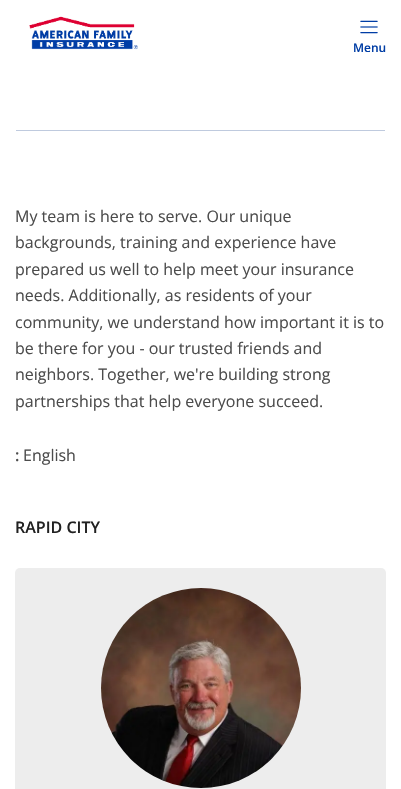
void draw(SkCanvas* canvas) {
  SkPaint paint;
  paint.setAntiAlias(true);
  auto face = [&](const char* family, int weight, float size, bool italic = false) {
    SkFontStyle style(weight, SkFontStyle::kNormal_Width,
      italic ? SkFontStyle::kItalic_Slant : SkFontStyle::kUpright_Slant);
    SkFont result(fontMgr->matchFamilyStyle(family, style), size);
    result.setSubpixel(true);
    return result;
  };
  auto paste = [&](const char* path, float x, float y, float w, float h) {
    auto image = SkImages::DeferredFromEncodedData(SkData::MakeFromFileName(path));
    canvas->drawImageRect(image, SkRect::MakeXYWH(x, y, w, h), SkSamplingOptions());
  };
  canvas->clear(0xffffffff);
  paste("img/1.png", 29, 16, 109, 34);
  paste("img/2.png", 360, 20, 18, 14);
  paint.setColor(0xffbfcade);
  canvas->drawRect(SkRect::MakeXYWH(16, 130, 369, 1), paint);
  paint.setColor(0xffededed);
  canvas->drawRoundRect(SkRect::MakeXYWH(15, 568, 371, 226), 5, 5, paint);
  paste("img/3.png", 101, 588, 200, 200);
  auto f0 = face("Open Sans", 600, 12);
  paint.setColor(0xff003da5);
  canvas->drawString("Menu", 353, 52, f0, paint);
  auto f1 = face("Open Sans", 400, 16);
  paint.setColor(0xff4c4c4c);
  {
    const struct { const char* s; float x, y; } items[] = {
      {"My team is here to serve. Our unique", 15, 222},
      {"backgrounds, training and experience have", 15, 248},
      {"prepared us well to help meet your insurance", 15, 275},
      {"needs. Additionally, as residents of your", 15, 301},
      {"community, we understand how important it is to", 15, 328},
      {"be there for you - our trusted friends and", 15, 354},
      {"neighbors. Together, we're building strong", 15, 380},
      {"partnerships that help everyone succeed.", 15, 407},
    };
    for (auto [s, x, y] : items) {
      canvas->drawString(s, x, y, f1, paint);
    }
  }
  auto f2 = face("Open Sans", 600, 16);
  canvas->drawString(":", 15, 461, f2, paint);
  canvas->drawString("English", 23, 461, f1, paint);
  paint.setColor(0xff212121);
  canvas->drawString("RAPID CITY", 15, 533, f2, paint);
}
